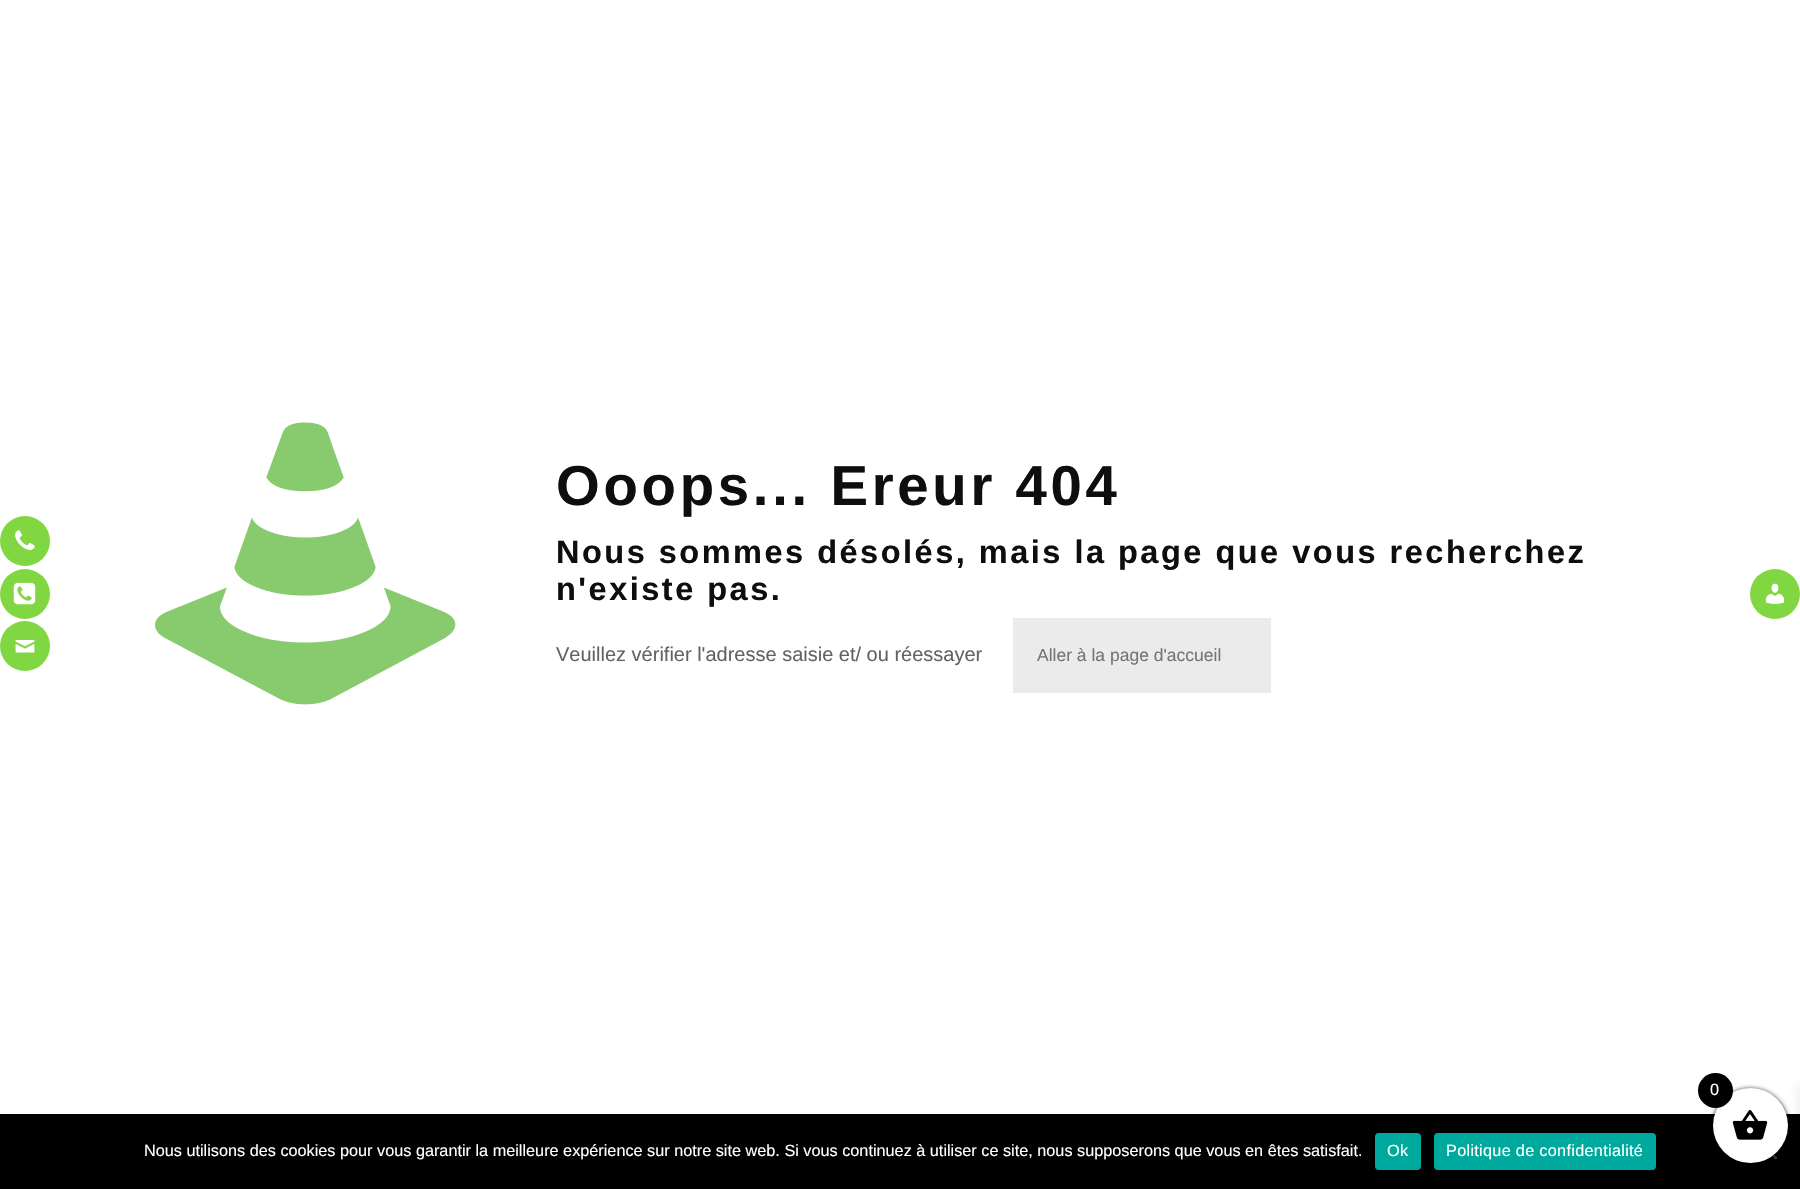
void draw(SkCanvas* canvas) {
  SkPaint paint;
  paint.setAntiAlias(true);
  auto face = [&](const char* family, int weight, float size, bool italic = false) {
    SkFontStyle style(weight, SkFontStyle::kNormal_Width,
      italic ? SkFontStyle::kItalic_Slant : SkFontStyle::kUpright_Slant);
    SkFont result(fontMgr->matchFamilyStyle(family, style), size);
    result.setSubpixel(true);
    return result;
  };
  auto writeSpaced = [&](const char* s, float x, float y, const SkFont& font, const SkPaint& ink, float letter, float word) {
    std::vector<SkGlyphID> glyphs(font.countText(s, strlen(s), SkTextEncoding::kUTF8));
    std::vector<float> xs(glyphs.size());
    font.textToGlyphs(s, strlen(s), SkTextEncoding::kUTF8, glyphs);
    font.getXPos(glyphs, xs, x);
    float extra = 0;
    for (size_t i = 0; i < glyphs.size(); i++) {
      xs[i] += extra;
      extra += letter + word * (glyphs[i] == font.unicharToGlyph(' '));
    }
    canvas->drawTextBlob(SkTextBlob::MakeFromPosHGlyphs(glyphs, xs, y, font), 0, 0, ink);
  };
  auto paste = [&](const char* path, float x, float y, float w, float h) {
    auto image = SkImages::DeferredFromEncodedData(SkData::MakeFromFileName(path));
    canvas->drawImageRect(image, SkRect::MakeXYWH(x, y, w, h), SkSamplingOptions());
  };
  auto shape = [&](const char* data, bool evenOdd = false) {
    SkPath result = *SkParsePath::FromSVGString(data);
    if (evenOdd) result.setFillType(SkPathFillType::kEvenOdd);
    return result;
  };
  canvas->clear(0xffffffff);
  paste("img/1.png", 155, 422, 301, 283);
  paint.setColor(0xffebebeb);
  canvas->drawRect(SkRect::MakeXYWH(1013, 618, 258, 75), paint);
  paint.setColor(0xff81d742);
  canvas->drawCircle(25, 541, 25, paint);
  paste("img/2.png", 15, 530, 20, 20);
  canvas->drawCircle(25, 594, 25, paint);
  paste("img/3.png", 13, 582, 23, 23);
  canvas->drawCircle(25, 646, 25, paint);
  paste("img/4.png", 15, 640, 20, 13);
  canvas->drawCircle(1775, 594, 25, paint);
  paste("img/5.png", 1765, 583, 20, 21);
  paint.setColor(0xff000000);
  canvas->drawRect(SkRect::MakeXYWH(0, 1114, 1800, 75), paint);
  paint.setColor(0xff404040);
  canvas->drawPath(shape("M1762.5 1146.5L1764.5 1144.5L1777.5 1158L1775.5 1159.5Z"), paint);
  paint.setColor(0xff000000);
  paint.setMaskFilter(SkMaskFilter::MakeBlur(kNormal_SkBlurStyle, 2.5f));
  canvas->drawRoundRect(SkRect::MakeXYWH(1713, 1089, 75, 75), 37.5f, 37.5f, paint);
  paint.setMaskFilter(nullptr);
  paint.setColor(0x1a000000);
  paint.setMaskFilter(SkMaskFilter::MakeBlur(kNormal_SkBlurStyle, 6));
  canvas->drawRect(SkRect::MakeXYWH(1800, 1085, 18, 99), paint);
  paint.setMaskFilter(nullptr);
  paint.setColor(0xffffffff);
  canvas->drawCircle(1750.5f, 1125.5f, 37.5f, paint);
  paint.setColor(0xff000000);
  canvas->drawCircle(1715.5f, 1090.5f, 17.5f, paint);
  paste("img/6.png", 1732, 1110, 36, 30);
  paint.setColor(0xff00a99d);
  canvas->drawRoundRect(SkRect::MakeXYWH(1375, 1133, 46, 37), 4, 4, paint);
  canvas->drawRoundRect(SkRect::MakeXYWH(1434, 1133, 222, 37), 4, 4, paint);
  auto f0 = face("Liberation Sans", 700, 56.25f);
  paint.setColor(0xff0e0e11);
  writeSpaced("Ooops... Ereur 404", 556, 505, f0, paint, 3.75f, 0);
  auto f1 = face("Liberation Sans", 700, 32.5f);
  writeSpaced("Nous sommes désolés, mais la page que vous recherchez", 556, 563, f1, paint, 2.5f, 0);
  writeSpaced("n'existe pas.", 556, 600, f1, paint, 2.5f, 0);
  auto f2 = face("Liberation Sans", 400, 20);
  paint.setColor(0xff626262);
  canvas->drawString("Veuillez vérifier l'adresse saisie et/ ou réessayer", 556, 661, f2, paint);
  auto f3 = face("Liberation Sans", 400, 17.5f);
  paint.setColor(0xff747474);
  canvas->drawString("Aller à la page d'accueil", 1037, 661, f3, paint);
  auto f4 = face("Liberation Sans", 400, 16.25f);
  paint.setColor(0xffffffff);
  canvas->drawString("0", 1710, 1095, f4, paint);
  canvas->drawString("Nous utilisons des cookies pour vous garantir la meilleure expérience sur notre site web. Si vous continuez à utiliser ce site, nous supposerons que vous en êtes satisfait.", 144, 1156, f4, paint);
  writeSpaced("Ok", 1387, 1156, f4, paint, 0.3f, 0);
  writeSpaced("Politique de confidentialité", 1446, 1156, f4, paint, 0.3f, 0);
}
